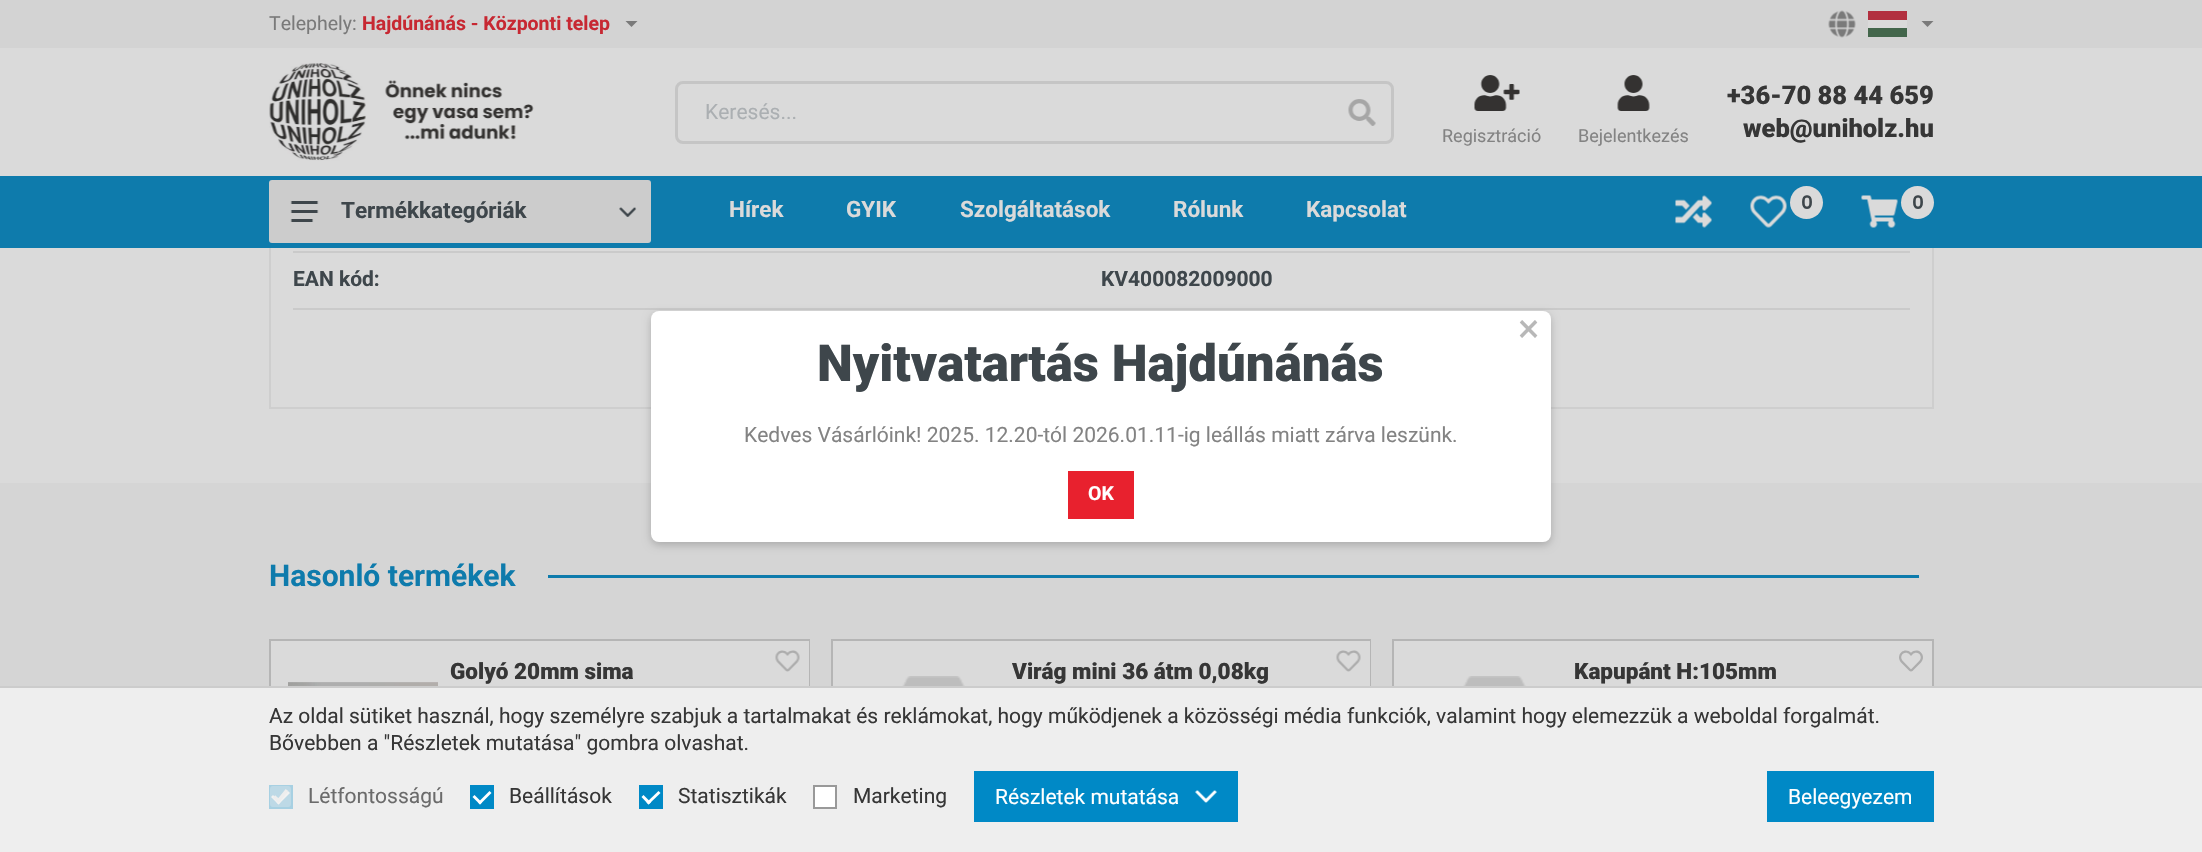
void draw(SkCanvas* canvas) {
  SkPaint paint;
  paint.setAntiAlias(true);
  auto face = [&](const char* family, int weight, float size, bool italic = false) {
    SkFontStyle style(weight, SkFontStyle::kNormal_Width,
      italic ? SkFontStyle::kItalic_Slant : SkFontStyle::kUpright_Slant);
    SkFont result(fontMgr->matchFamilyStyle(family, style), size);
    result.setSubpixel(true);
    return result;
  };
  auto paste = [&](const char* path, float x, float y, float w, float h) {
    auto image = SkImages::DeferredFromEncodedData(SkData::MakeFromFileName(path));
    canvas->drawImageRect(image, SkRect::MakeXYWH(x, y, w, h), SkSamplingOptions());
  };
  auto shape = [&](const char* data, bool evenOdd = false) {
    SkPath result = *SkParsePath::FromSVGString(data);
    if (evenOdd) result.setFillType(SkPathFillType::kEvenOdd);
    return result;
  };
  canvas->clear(0xffdadada);
  paint.setColor(0xffd3d3d3);
  canvas->drawRect(SkRect::MakeXYWH(0, 0, 2202, 48), paint);
  paint.setColor(0xff7a7a7a);
  canvas->drawPath(shape("M625.5 21H637.5L631.5 27Z"), paint);
  paste("img/1.png", 1828, 10, 28, 28);
  {
    const struct { float x, y, w, h; SkColor color; } items[] = {
      {1868, 28, 39, 9, 0xff43664b},
      {1868, 20, 39, 8, 0xffdadada},
      {1868, 11, 39, 9, 0xffb22f3f},
    };
    for (auto [x, y, w, h, color] : items) {
      paint.setColor(color);
      canvas->drawRect(SkRect::MakeXYWH(x, y, w, h), paint);
    }
  }
  paint.setColor(0xff7a7a7a);
  canvas->drawPath(shape("M1921.5 21H1933.5L1927.5 27Z"), paint);
  paste("img/2.png", 269, 63, 265, 98);
  paint.setStroke(true);
  paint.setStrokeWidth(3);
  paint.setColor(0xffc5c5c5);
  canvas->drawRoundRect(SkRect::MakeXYWH(676.5f, 82.5f, 716, 60), 6.5f, 6.5f, paint);
  paste("img/3.png", 1348, 99, 28, 27);
  paste("img/4.png", 1474, 75, 46, 36);
  paste("img/5.png", 1617, 75, 33, 36);
  paint.setStroke(false);
  paint.setColor(0xff0e7bac);
  canvas->drawRect(SkRect::MakeXYWH(0, 176, 2202, 72), paint);
  paint.setColor(0xffcccccc);
  canvas->drawRoundRect(SkRect::MakeXYWH(269, 180, 382, 63), 3, 3, paint);
  paste("img/6.png", 290, 201, 29, 21);
  paste("img/7.png", 619, 207, 18, 10);
  paste("img/8.png", 1675, 195, 37, 33);
  paste("img/9.png", 1750, 195, 37, 33);
  paint.setColor(0xffdadada);
  canvas->drawCircle(1806.5f, 202.5f, 16.5f, paint);
  paste("img/10.png", 1861, 195, 37, 33);
  canvas->drawCircle(1917.5f, 202.5f, 16.5f, paint);
  {
    const struct { float x, y, w, h; SkColor color; } items[] = {
      {1932, 248, 2, 160, 0xffcecece},
      {269, 407, 1665, 2, 0xffcecece},
      {269, 248, 2, 160, 0xffcecece},
      {293, 251, 1617, 2, 0xffcacaca},
      {293, 308, 1617, 2, 0xffcacaca},
      {0, 483, 2202, 203, 0xffd5d5d5},
      {548, 575, 1371, 3, 0xff0e7bac},
      {271, 641, 496, 45, 0xffdadada},
    };
    for (auto [x, y, w, h, color] : items) {
      paint.setColor(color);
      canvas->drawRect(SkRect::MakeXYWH(x, y, w, h), paint);
    }
  }
  paint.setStroke(true);
  paint.setStrokeWidth(2);
  paint.setColor(0xffb5b5b5);
  canvas->drawRect(SkRect::MakeXYWH(270, 640, 539, 187), paint);
  paste("img/11.png", 288, 682, 150, 4);
  paint.setStroke(false);
  paint.setColor(0xffdadada);
  canvas->drawRect(SkRect::MakeXYWH(767, 641, 42, 45), paint);
  paste("img/12.png", 775, 650, 25, 22);
  canvas->drawRect(SkRect::MakeXYWH(833, 641, 495, 45), paint);
  paint.setStroke(true);
  paint.setColor(0xffb5b5b5);
  canvas->drawRect(SkRect::MakeXYWH(832, 640, 538, 187), paint);
  paste("img/13.png", 902, 676, 63, 10);
  paint.setStroke(false);
  paint.setColor(0xffdadada);
  canvas->drawRect(SkRect::MakeXYWH(1328, 641, 42, 45), paint);
  paste("img/12.png", 1336, 650, 25, 22);
  canvas->drawRect(SkRect::MakeXYWH(1394, 641, 538, 45), paint);
  paint.setStroke(true);
  paint.setColor(0xffb5b5b5);
  canvas->drawRect(SkRect::MakeXYWH(1393, 640, 540, 187), paint);
  paste("img/13.png", 1463, 676, 63, 10);
  paste("img/14.png", 1899, 650, 24, 22);
  paint.setStroke(false);
  paint.setColor(0x33000000);
  paint.setMaskFilter(SkMaskFilter::MakeBlur(kNormal_SkBlurStyle, 4.5f));
  canvas->drawRoundRect(SkRect::MakeXYWH(651, 314, 900, 231), 8, 8, paint);
  paint.setMaskFilter(nullptr);
  paint.setColor(0xffffffff);
  canvas->drawRoundRect(SkRect::MakeXYWH(651, 311, 900, 231), 8, 8, paint);
  {
    const struct { float x, y, w, h; SkColor color; } items[] = {
      {1068, 471, 66, 48, 0xffe8212e},
      {0, 688, 2202, 164, 0xffeeeeee},
      {0, 686, 2202, 2, 0xffcccccc},
      {269, 785, 24, 24, 0xffa7d0e2},
    };
    for (auto [x, y, w, h, color] : items) {
      paint.setColor(color);
      canvas->drawRect(SkRect::MakeXYWH(x, y, w, h), paint);
    }
  }
  paint.setColor(0xfff3f3f3);
  canvas->drawPath(shape("M276.5 802.5L288 791L290 793L278.5 804.5Z"), paint);
  canvas->drawPath(shape("M271 797L273 795L280.5 802.5L278.5 804.5Z"), paint);
  paint.setColor(0x4deeeeee);
  canvas->drawRoundRect(SkRect::MakeXYWH(270, 786, 21, 21), 3, 3, paint);
  paint.setStroke(true);
  paint.setStrokeWidth(3.4f);
  paint.setColor(0xffeeeeee);
  canvas->drawPath(shape("M274 796.5L278.5 800.5L287 790"), paint);
  paint.setStroke(false);
  paint.setColor(0xff0089c6);
  canvas->drawRect(SkRect::MakeXYWH(470, 785, 24, 24), paint);
  paint.setColor(0xffffffff);
  canvas->drawPath(shape("M478 802.5L489.5 791L491.5 793L480 804.5Z"), paint);
  canvas->drawPath(shape("M472.5 797L474.5 795L482 802.5L480 804.5Z"), paint);
  paint.setColor(0xff0089c6);
  canvas->drawRect(SkRect::MakeXYWH(639, 785, 24, 24), paint);
  paint.setColor(0xffffffff);
  canvas->drawPath(shape("M646.5 802.5L658.5 791L660.5 793L648.5 804.5Z"), paint);
  canvas->drawPath(shape("M641.5 797L643.5 795L651 802.5L648.5 804.5Z"), paint);
  canvas->drawRect(SkRect::MakeXYWH(814, 786, 22, 22), paint);
  paint.setStroke(true);
  paint.setStrokeWidth(2);
  paint.setColor(0xff999999);
  canvas->drawRect(SkRect::MakeXYWH(814, 786, 22, 22), paint);
  paint.setStroke(false);
  paint.setColor(0xff0089c6);
  canvas->drawRect(SkRect::MakeXYWH(974, 771, 264, 51), paint);
  paste("img/15.png", 1195, 790, 22, 13);
  canvas->drawRect(SkRect::MakeXYWH(1767, 771, 167, 51), paint);
  auto f0 = face("Roboto", 400, 19.5f);
  paint.setColor(0xff7a7a7a);
  canvas->drawString("Telephely:", 269, 30, f0, paint);
  auto f1 = face("Roboto", 700, 19.5f);
  paint.setColor(0xffc72832);
  canvas->drawString("Hajdúnánás - Központi telep", 362, 30, f1, paint);
  auto f2 = face("Roboto", 400, 21);
  paint.setColor(0xffabafb2);
  canvas->drawString("Keresés...", 705, 119, f2, paint);
  auto f3 = face("Roboto", 900, 25.5f);
  paint.setColor(0xff363636);
  canvas->drawString("+36-70 88 44 659", 1727, 104, f3, paint);
  canvas->drawString("web@uniholz.hu", 1743, 137, f3, paint);
  auto f4 = face("Roboto", 400, 18);
  paint.setColor(0xff838383);
  canvas->drawString("Regisztráció", 1442, 142, f4, paint);
  canvas->drawString("Bejelentkezés", 1578, 142, f4, paint);
  auto f5 = face("Roboto", 700, 22.5f);
  paint.setColor(0xff3e464b);
  canvas->drawString("Termékkategóriák", 341, 218, f5, paint);
  paint.setColor(0xffdadada);
  {
    const struct { const char* s; float x, y; } items[] = {
      {"Hírek", 729, 217},
      {"GYIK", 846, 217},
      {"Szolgáltatások", 960, 217},
      {"Rólunk", 1173, 217},
      {"Kapcsolat", 1306, 217},
    };
    for (auto [s, x, y] : items) {
      canvas->drawString(s, x, y, f5, paint);
    }
  }
  auto f6 = face("Poppins", 700, 18);
  paint.setColor(0xff3e464b);
  canvas->drawString("0", 1801, 209, f6, paint);
  canvas->drawString("0", 1912, 209, f6, paint);
  auto f7 = face("Roboto", 700, 21);
  canvas->drawString("EAN kód:", 293, 286, f7, paint);
  canvas->drawString("KV400082009000", 1101, 286, f7, paint);
  auto f8 = face("Roboto", 700, 30);
  paint.setColor(0xff0e7bac);
  canvas->drawString("Hasonló termékek", 269, 586, f8, paint);
  auto f9 = face("Roboto", 900, 22.5f);
  paint.setColor(0xff363636);
  {
    const struct { const char* s; float x, y; } items[] = {
      {"Golyó 20mm sima", 450, 679},
      {"Virág mini 36 átm 0,08kg", 1012, 679},
      {"Kapupánt H:105mm", 1574, 679},
    };
    for (auto [s, x, y] : items) {
      canvas->drawString(s, x, y, f9, paint);
    }
  }
  auto f10 = face("Roboto", 400, 40);
  paint.setColor(0xffb8b8b8);
  canvas->drawString("×", 1518, 342, f10, paint);
  auto f11 = face("Roboto", 900, 51);
  paint.setColor(0xff3e464b);
  canvas->drawString("Nyitvatartás Hajdúnánás", 817, 381, f11, paint);
  paint.setColor(0xff838383);
  canvas->drawString("Kedves Vásárlóink! 2025. 12.20-tól 2026.01.11-ig leállás miatt zárva leszünk.", 744, 442, f2, paint);
  paint.setColor(0xffffffff);
  canvas->drawString("OK", 1088, 500, f1, paint);
  paint.setColor(0xff363636);
  canvas->drawString("Az oldal sütiket használ, hogy személyre szabjuk a tartalmakat és reklámokat, hogy működjenek a közösségi média funkciók, valamint hogy elemezzük a weboldal forgalmát.", 269, 723, f2, paint);
  canvas->drawString("Bővebben a \"Részletek mutatása\" gombra olvashat.", 269, 750, f2, paint);
  paint.setColor(0xff6b6b6b);
  canvas->drawString("Létfontosságú", 308, 803, f2, paint);
  paint.setColor(0xff363636);
  {
    const struct { const char* s; float x, y; } items[] = {
      {"Beállítások", 509, 803},
      {"Statisztikák", 678, 803},
      {"Marketing", 853, 803},
    };
    for (auto [s, x, y] : items) {
      canvas->drawString(s, x, y, f2, paint);
    }
  }
  paint.setColor(0xffffffff);
  canvas->drawString("Részletek mutatása", 995, 804, f2, paint);
  canvas->drawString("Beleegyezem", 1788, 804, f2, paint);
}
